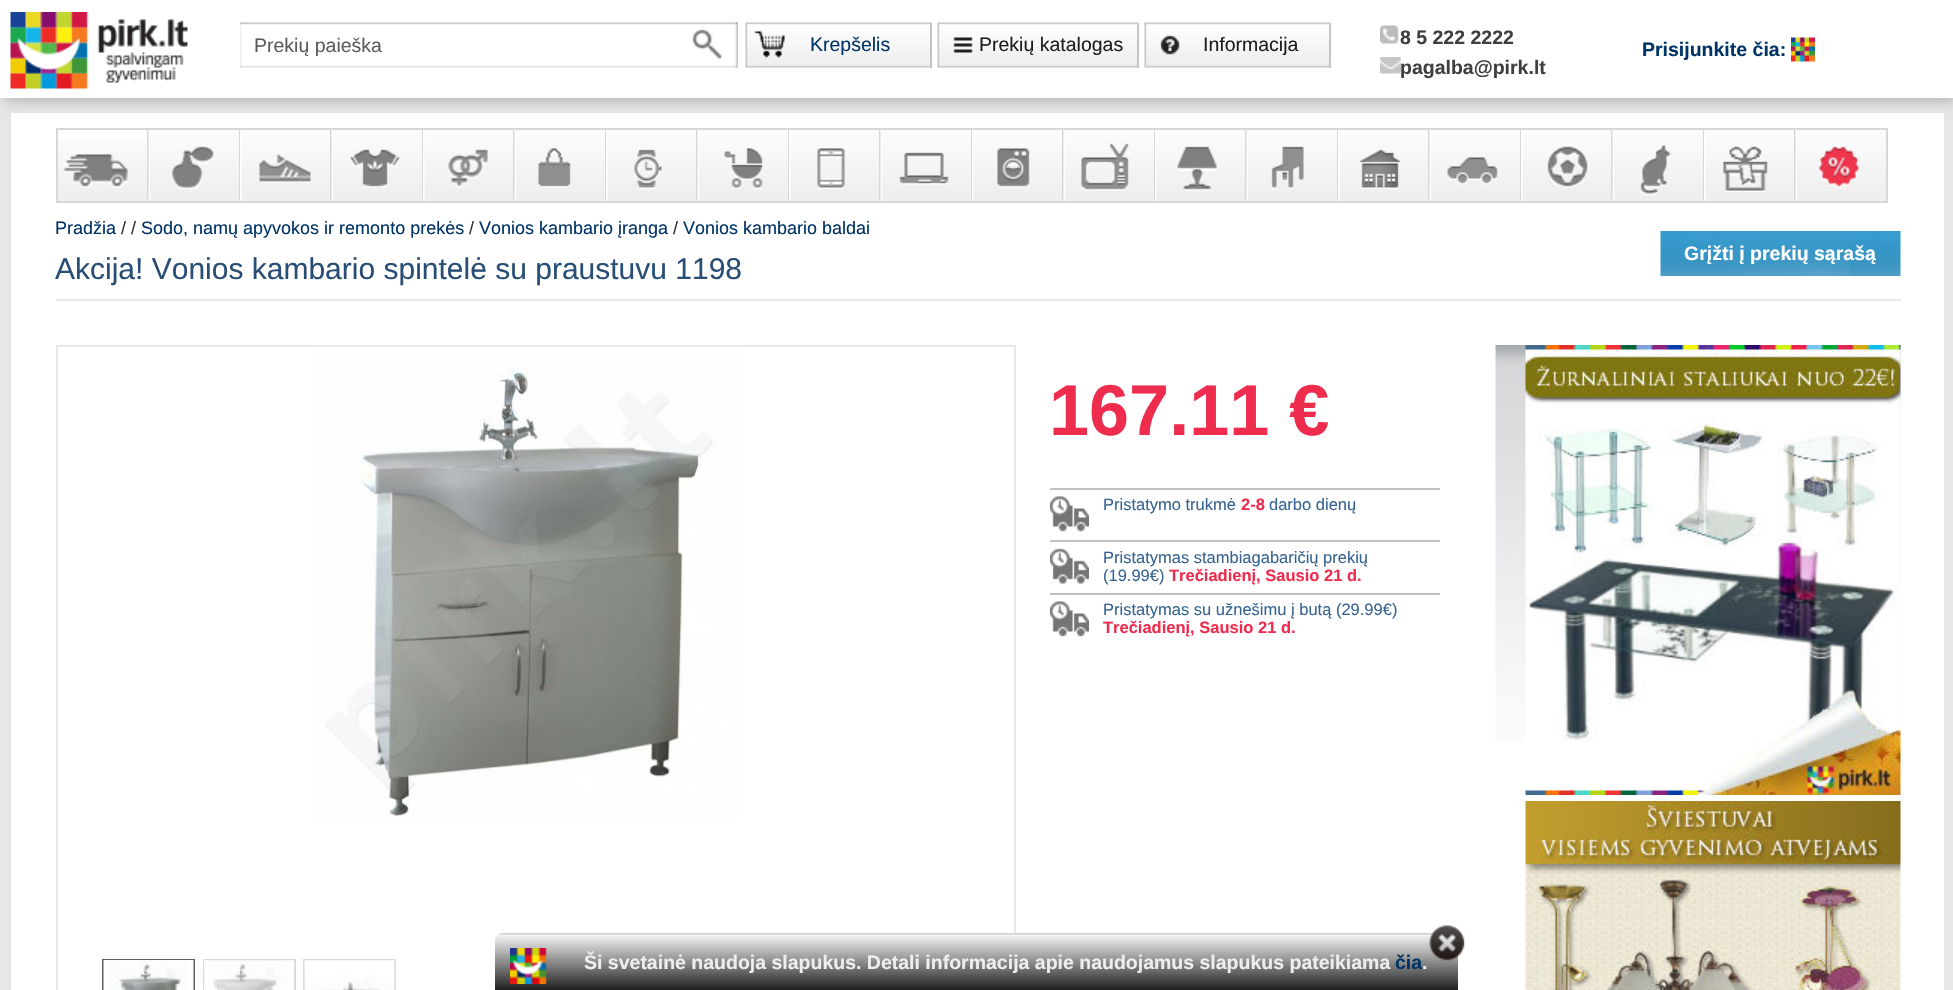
void draw(SkCanvas* canvas) {
  SkPaint paint;
  paint.setAntiAlias(true);
  auto face = [&](const char* family, int weight, float size, bool italic = false) {
    SkFontStyle style(weight, SkFontStyle::kNormal_Width,
      italic ? SkFontStyle::kItalic_Slant : SkFontStyle::kUpright_Slant);
    SkFont result(fontMgr->matchFamilyStyle(family, style), size);
    result.setSubpixel(true);
    return result;
  };
  auto paste = [&](const char* path, float x, float y, float w, float h) {
    auto image = SkImages::DeferredFromEncodedData(SkData::MakeFromFileName(path));
    canvas->drawImageRect(image, SkRect::MakeXYWH(x, y, w, h), SkSamplingOptions());
  };
  canvas->clear(0xffe7e7e7);
  paint.setColor(0xffffffff);
  canvas->drawRect(SkRect::MakeXYWH(11, 113, 1933, 877), paint);
  paint.setColor(0x4a000000);
  paint.setMaskFilter(SkMaskFilter::MakeBlur(kNormal_SkBlurStyle, 7.5f));
  canvas->drawRect(SkRect::MakeXYWH(5, 2, 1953, 97), paint);
  paint.setMaskFilter(nullptr);
  paint.setColor(0xffffffff);
  canvas->drawRect(SkRect::MakeXYWH(0, 0, 1953, 98), paint);
  paste("img/1.png", 10, 12, 178, 77);
  paste("img/2.png", 240, 22, 498, 46);
  paste("img/3.png", 745, 22, 187, 46);
  paint.setColor(0xffc3c3c3);
  canvas->drawRect(SkRect::MakeXYWH(930, 23, 2, 45), paint);
  paste("img/4.png", 937, 22, 202, 46);
  canvas->drawRect(SkRect::MakeXYWH(1137, 23, 2, 45), paint);
  paste("img/5.png", 1144, 22, 187, 46);
  canvas->drawRect(SkRect::MakeXYWH(1329, 23, 2, 45), paint);
  paste("img/6.png", 1380, 25, 19, 19);
  paste("img/7.png", 1380, 57, 21, 17);
  paste("img/8.png", 1791, 37, 24, 25);
  paste("img/9.png", 58, 139, 89, 62);
  paint.setStroke(true);
  paint.setStrokeWidth(2);
  paint.setColor(0xffd6d7d8);
  canvas->drawRect(SkRect::MakeXYWH(57, 129, 91, 73), paint);
  paste("img/10.png", 64, 154, 64, 34);
  paste("img/11.png", 148, 129, 91, 72);
  paint.setStroke(false);
  {
    const struct { float x, y, w, h; SkColor color; } items[] = {
      {149, 128, 183, 2, 0xffd6d7d8},
      {239, 128, 1, 75, 0xffd6d7d8},
      {149, 201, 91, 2, 0xffd6d7d8},
    };
    for (auto [x, y, w, h, color] : items) {
      paint.setColor(color);
      canvas->drawRect(SkRect::MakeXYWH(x, y, w, h), paint);
    }
  }
  paste("img/12.png", 172, 146, 42, 43);
  paste("img/13.png", 240, 130, 90, 71);
  canvas->drawRect(SkRect::MakeXYWH(330, 128, 2, 75), paint);
  canvas->drawRect(SkRect::MakeXYWH(240, 201, 92, 2), paint);
  paste("img/14.png", 259, 154, 52, 29);
  paste("img/11.png", 331, 129, 91, 72);
  {
    const struct { float x, y, w, h; SkColor color; } items[] = {
      {332, 128, 183, 2, 0xffd6d7d8},
      {422, 128, 1, 75, 0xffd6d7d8},
      {332, 201, 91, 2, 0xffd6d7d8},
    };
    for (auto [x, y, w, h, color] : items) {
      paint.setColor(color);
      canvas->drawRect(SkRect::MakeXYWH(x, y, w, h), paint);
    }
  }
  paste("img/15.png", 350, 149, 50, 39);
  paste("img/16.png", 423, 130, 90, 71);
  canvas->drawRect(SkRect::MakeXYWH(513, 128, 2, 75), paint);
  canvas->drawRect(SkRect::MakeXYWH(423, 201, 92, 2), paint);
  paste("img/17.png", 448, 149, 40, 39);
  paste("img/11.png", 514, 129, 91, 72);
  {
    const struct { float x, y, w, h; SkColor color; } items[] = {
      {515, 128, 183, 2, 0xffd6d7d8},
      {605, 128, 1, 75, 0xffd6d7d8},
      {515, 201, 91, 2, 0xffd6d7d8},
    };
    for (auto [x, y, w, h, color] : items) {
      paint.setColor(color);
      canvas->drawRect(SkRect::MakeXYWH(x, y, w, h), paint);
    }
  }
  paste("img/18.png", 538, 148, 33, 40);
  paste("img/13.png", 606, 130, 90, 71);
  canvas->drawRect(SkRect::MakeXYWH(696, 128, 2, 75), paint);
  canvas->drawRect(SkRect::MakeXYWH(606, 201, 92, 2), paint);
  paste("img/19.png", 634, 149, 28, 40);
  paste("img/11.png", 697, 129, 91, 72);
  {
    const struct { float x, y, w, h; SkColor color; } items[] = {
      {698, 128, 183, 2, 0xffd6d7d8},
      {788, 128, 1, 75, 0xffd6d7d8},
      {698, 201, 91, 2, 0xffd6d7d8},
    };
    for (auto [x, y, w, h, color] : items) {
      paint.setColor(color);
      canvas->drawRect(SkRect::MakeXYWH(x, y, w, h), paint);
    }
  }
  paste("img/20.png", 723, 148, 40, 41);
  paste("img/13.png", 789, 130, 90, 71);
  canvas->drawRect(SkRect::MakeXYWH(879, 128, 2, 75), paint);
  canvas->drawRect(SkRect::MakeXYWH(789, 201, 92, 2), paint);
  paste("img/21.png", 817, 148, 28, 41);
  paste("img/11.png", 880, 129, 91, 72);
  {
    const struct { float x, y, w, h; SkColor color; } items[] = {
      {881, 128, 183, 2, 0xffd6d7d8},
      {971, 128, 1, 75, 0xffd6d7d8},
      {881, 201, 91, 2, 0xffd6d7d8},
    };
    for (auto [x, y, w, h, color] : items) {
      paint.setColor(color);
      canvas->drawRect(SkRect::MakeXYWH(x, y, w, h), paint);
    }
  }
  paste("img/22.png", 899, 152, 50, 33);
  paste("img/13.png", 972, 130, 90, 71);
  canvas->drawRect(SkRect::MakeXYWH(1062, 128, 2, 75), paint);
  canvas->drawRect(SkRect::MakeXYWH(972, 201, 92, 2), paint);
  paste("img/23.png", 997, 148, 33, 40);
  paste("img/11.png", 1063, 129, 91, 72);
  {
    const struct { float x, y, w, h; SkColor color; } items[] = {
      {1064, 128, 183, 2, 0xffd6d7d8},
      {1154, 128, 1, 75, 0xffd6d7d8},
      {1064, 201, 91, 2, 0xffd6d7d8},
    };
    for (auto [x, y, w, h, color] : items) {
      paint.setColor(color);
      canvas->drawRect(SkRect::MakeXYWH(x, y, w, h), paint);
    }
  }
  paste("img/24.png", 1081, 143, 48, 48);
  paste("img/16.png", 1155, 130, 90, 71);
  canvas->drawRect(SkRect::MakeXYWH(1245, 128, 2, 75), paint);
  canvas->drawRect(SkRect::MakeXYWH(1155, 201, 92, 2), paint);
  paste("img/25.png", 1177, 146, 40, 45);
  paste("img/11.png", 1246, 129, 91, 72);
  {
    const struct { float x, y, w, h; SkColor color; } items[] = {
      {1247, 128, 183, 2, 0xffd6d7d8},
      {1337, 128, 1, 75, 0xffd6d7d8},
      {1247, 201, 91, 2, 0xffd6d7d8},
    };
    for (auto [x, y, w, h, color] : items) {
      paint.setColor(color);
      canvas->drawRect(SkRect::MakeXYWH(x, y, w, h), paint);
    }
  }
  paste("img/26.png", 1271, 146, 33, 43);
  paste("img/16.png", 1338, 130, 90, 71);
  canvas->drawRect(SkRect::MakeXYWH(1428, 128, 2, 75), paint);
  canvas->drawRect(SkRect::MakeXYWH(1338, 201, 92, 2), paint);
  paste("img/27.png", 1359, 149, 42, 40);
  paste("img/11.png", 1429, 129, 91, 72);
  {
    const struct { float x, y, w, h; SkColor color; } items[] = {
      {1430, 128, 183, 2, 0xffd6d7d8},
      {1520, 128, 1, 75, 0xffd6d7d8},
      {1430, 201, 91, 2, 0xffd6d7d8},
    };
    for (auto [x, y, w, h, color] : items) {
      paint.setColor(color);
      canvas->drawRect(SkRect::MakeXYWH(x, y, w, h), paint);
    }
  }
  paste("img/28.png", 1447, 157, 51, 28);
  paste("img/16.png", 1521, 130, 90, 71);
  canvas->drawRect(SkRect::MakeXYWH(1611, 128, 2, 75), paint);
  canvas->drawRect(SkRect::MakeXYWH(1521, 201, 92, 2), paint);
  paste("img/29.png", 1547, 146, 41, 42);
  paste("img/11.png", 1612, 129, 91, 72);
  {
    const struct { float x, y, w, h; SkColor color; } items[] = {
      {1613, 128, 183, 2, 0xffd6d7d8},
      {1703, 128, 1, 75, 0xffd6d7d8},
      {1613, 201, 91, 2, 0xffd6d7d8},
    };
    for (auto [x, y, w, h, color] : items) {
      paint.setColor(color);
      canvas->drawRect(SkRect::MakeXYWH(x, y, w, h), paint);
    }
  }
  paste("img/30.png", 1639, 145, 33, 50);
  paste("img/13.png", 1704, 130, 90, 71);
  canvas->drawRect(SkRect::MakeXYWH(1794, 128, 2, 75), paint);
  canvas->drawRect(SkRect::MakeXYWH(1704, 201, 92, 2), paint);
  paste("img/31.png", 1723, 146, 45, 46);
  paste("img/11.png", 1795, 129, 91, 72);
  {
    const struct { float x, y, w, h; SkColor color; } items[] = {
      {1796, 128, 91, 2, 0xffd6d7d8},
      {1886, 128, 2, 75, 0xffd6d7d8},
      {1796, 201, 91, 2, 0xffd6d7d8},
    };
    for (auto [x, y, w, h, color] : items) {
      paint.setColor(color);
      canvas->drawRect(SkRect::MakeXYWH(x, y, w, h), paint);
    }
  }
  paste("img/32.png", 1819, 146, 40, 42);
  paint.setColor(0xffe9e7eb);
  canvas->drawRect(SkRect::MakeXYWH(56, 299, 1845, 2), paint);
  paste("img/33.png", 1660, 231, 241, 45);
  paint.setStroke(true);
  canvas->drawRect(SkRect::MakeXYWH(57, 346, 958, 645), paint);
  paste("img/34.png", 315, 346, 427, 476);
  paint.setColor(0xff616161);
  canvas->drawRect(SkRect::MakeXYWH(103, 960, 91, 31), paint);
  paste("img/35.png", 103, 960, 91, 30);
  paint.setColor(0xffdbdbdb);
  canvas->drawRect(SkRect::MakeXYWH(204, 960, 91, 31), paint);
  paste("img/36.png", 204, 960, 90, 30);
  canvas->drawRect(SkRect::MakeXYWH(304, 960, 91, 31), paint);
  paste("img/37.png", 304, 960, 91, 30);
  paint.setStroke(false);
  paint.setColor(0xffc0c0c0);
  canvas->drawRect(SkRect::MakeXYWH(1050, 488, 390, 2), paint);
  paste("img/38.png", 1050, 496, 39, 36);
  canvas->drawRect(SkRect::MakeXYWH(1050, 540, 390, 2), paint);
  paste("img/39.png", 1050, 548, 39, 36);
  canvas->drawRect(SkRect::MakeXYWH(1050, 593, 390, 2), paint);
  paste("img/38.png", 1050, 601, 39, 36);
  paste("img/40.png", 1495, 345, 406, 397);
  paste("img/41.png", 1525, 345, 376, 450);
  paste("img/42.png", 1525, 801, 376, 189);
  paste("img/43.png", 495, 933, 963, 57);
  paste("img/44.png", 1429, 925, 36, 36);
  paste("img/45.png", 510, 948, 37, 36);
  auto f0 = face("Liberation Sans", 400, 19.5f);
  paint.setColor(0xff5b5b5b);
  canvas->drawString("Prekių paieška", 254, 52, f0, paint);
  paint.setColor(0xff003366);
  canvas->drawString("Krepšelis", 810, 51, f0, paint);
  paint.setColor(0xff1d1d1d);
  canvas->drawString("Prekių katalogas", 979, 51, f0, paint);
  canvas->drawString("Informacija", 1203, 51, f0, paint);
  auto f1 = face("Liberation Sans", 700, 19.5f);
  paint.setColor(0xff3f3f3f);
  canvas->drawString("8 5 222 2222", 1400, 44, f1, paint);
  canvas->drawString("pagalba@pirk.lt", 1400, 74, f1, paint);
  paint.setColor(0xff003366);
  canvas->drawString("Prisijunkite čia:", 1642, 56, f1, paint);
  auto f2 = face("Liberation Sans", 400, 18);
  canvas->drawString("Pradžia", 55, 234, f2, paint);
  paint.setColor(0xff333333);
  canvas->drawString("/ /", 121, 234, f2, paint);
  paint.setColor(0xff003366);
  canvas->drawString("Sodo, namų apyvokos ir remonto prekės", 141, 234, f2, paint);
  paint.setColor(0xff333333);
  canvas->drawString("/", 469, 234, f2, paint);
  paint.setColor(0xff003366);
  canvas->drawString("Vonios kambario įranga", 479, 234, f2, paint);
  paint.setColor(0xff333333);
  canvas->drawString("/", 673, 234, f2, paint);
  paint.setColor(0xff003366);
  canvas->drawString("Vonios kambario baldai", 683, 234, f2, paint);
  paint.setColor(0xffffffff);
  canvas->drawString("Grįžti į prekių sąrašą", 1684, 260, f1, paint);
  auto f3 = face("Liberation Sans", 400, 30);
  paint.setColor(0xff284e75);
  canvas->drawString("Akcija! Vonios kambario spintelė su praustuvu 1198", 55, 279, f3, paint);
  auto f4 = face("Liberation Sans", 700, 72);
  paint.setColor(0xffee2c4e);
  canvas->drawString("167.11 €", 1049, 435, f4, paint);
  auto f5 = face("Liberation Sans", 400, 16.5f);
  paint.setColor(0xff366390);
  canvas->drawString("Pristatymo trukmė", 1103, 510, f5, paint);
  auto f6 = face("Liberation Sans", 700, 16.5f);
  paint.setColor(0xffee2c4e);
  canvas->drawString("2-8", 1241, 510, f6, paint);
  paint.setColor(0xff366390);
  {
    const struct { const char* s; float x, y; } items[] = {
      {"darbo dienų", 1269, 510},
      {"Pristatymas stambiagabaričių prekių", 1103, 563},
      {"(19.99€)", 1103, 581},
    };
    for (auto [s, x, y] : items) {
      canvas->drawString(s, x, y, f5, paint);
    }
  }
  paint.setColor(0xffee2c4e);
  canvas->drawString("Trečiadienį, Sausio 21 d.", 1169, 581, f6, paint);
  paint.setColor(0xff366390);
  canvas->drawString("Pristatymas su užnešimu į butą (29.99€)", 1103, 615, f5, paint);
  paint.setColor(0xffee2c4e);
  canvas->drawString("Trečiadienį, Sausio 21 d.", 1103, 633, f6, paint);
  paint.setColor(0xffeeeeee);
  canvas->drawString("Ši svetainė naudoja slapukus. Detali informacija apie naudojamus slapukus pateikiama", 584, 969, f1, paint);
  paint.setColor(0xff003366);
  canvas->drawString("čia", 1395, 969, f1, paint);
  paint.setColor(0xffeeeeee);
  canvas->drawString(".", 1422, 969, f1, paint);
}
